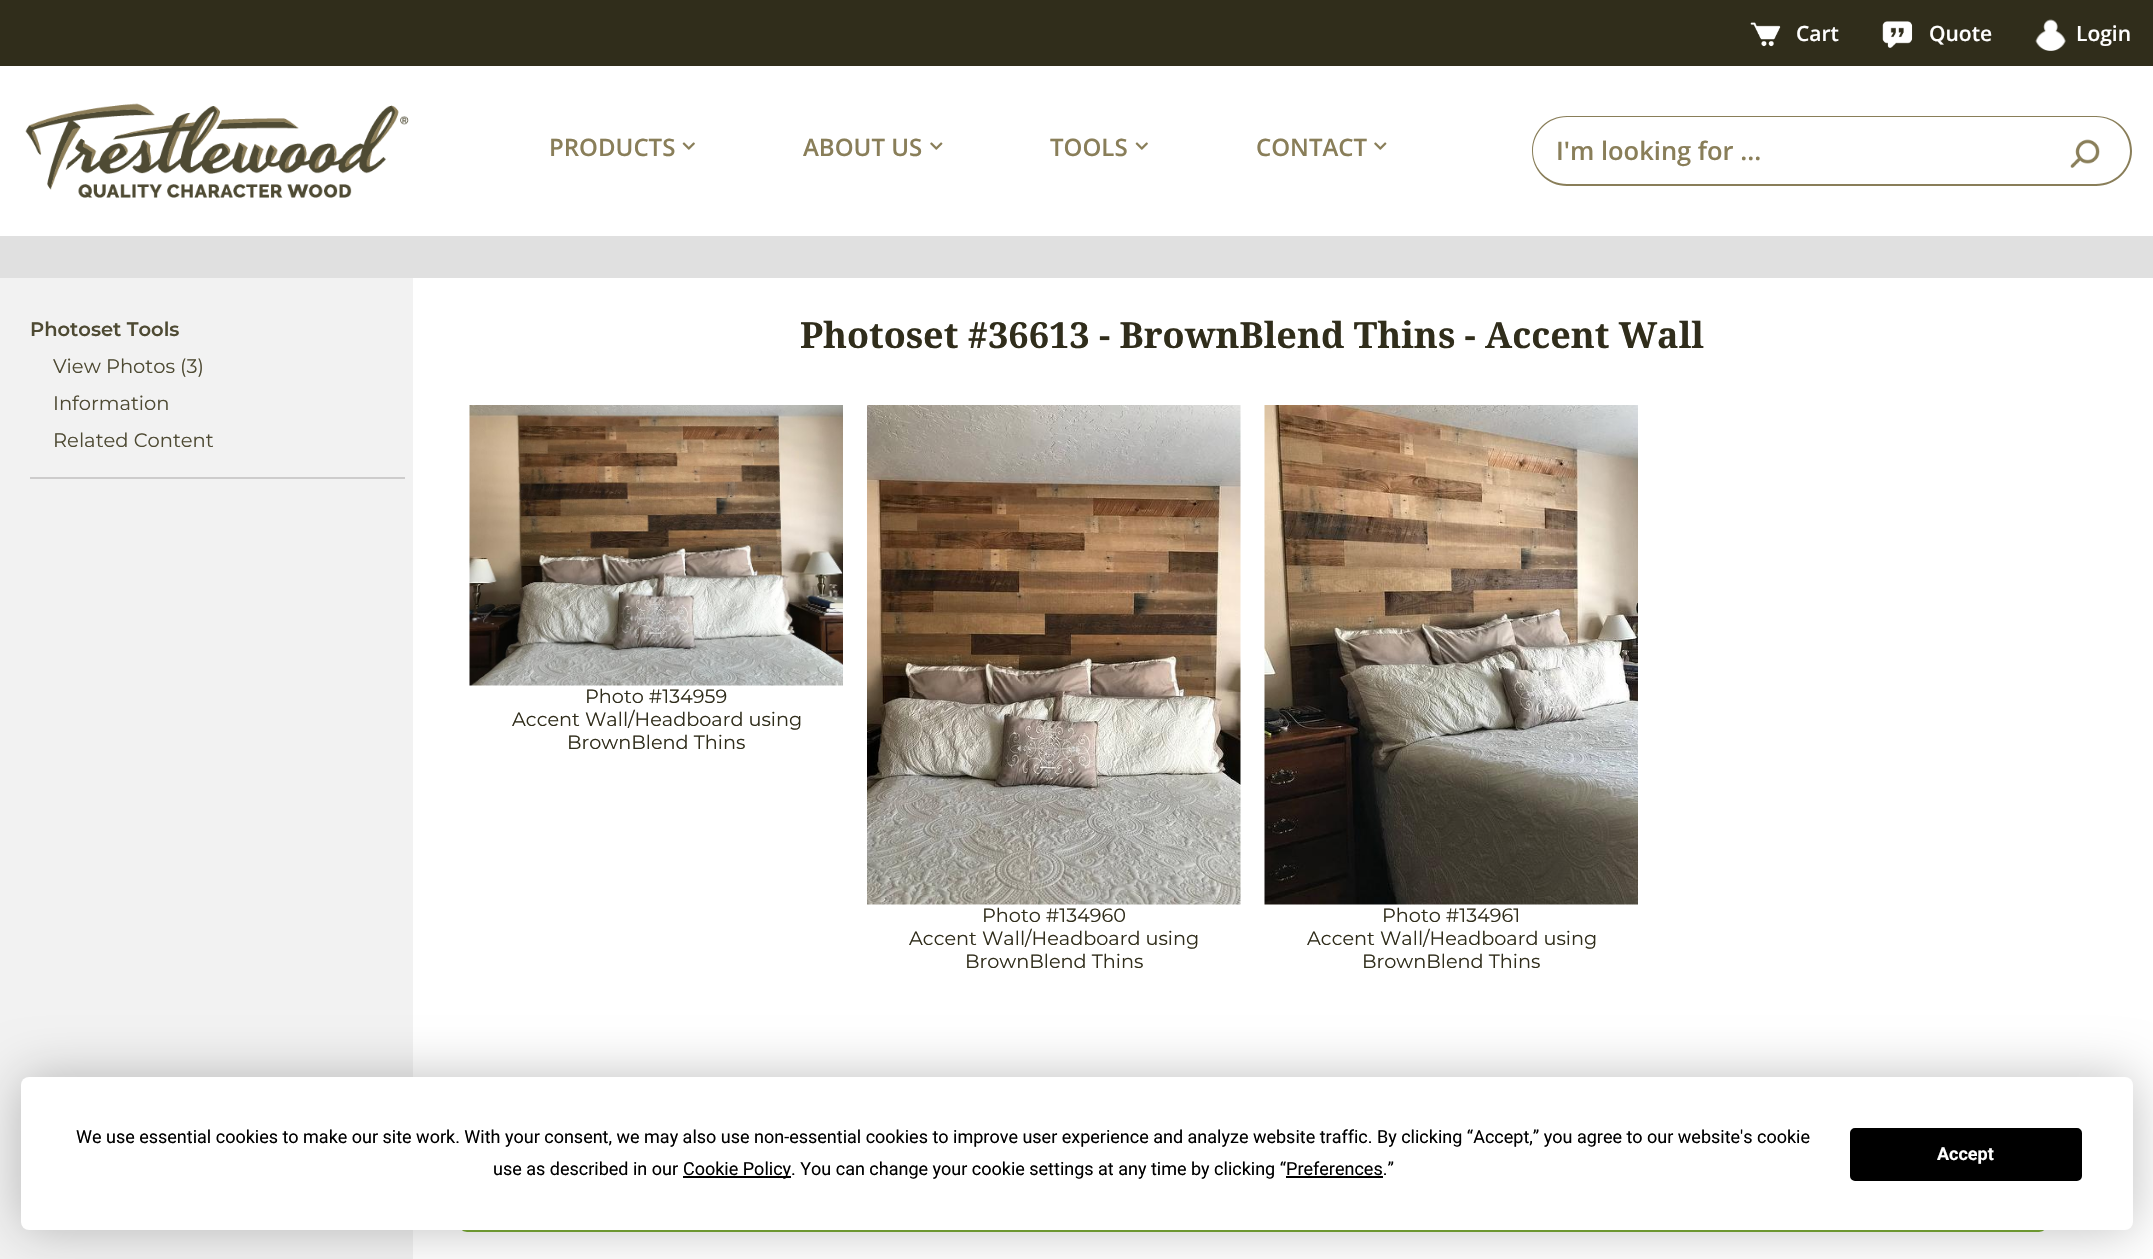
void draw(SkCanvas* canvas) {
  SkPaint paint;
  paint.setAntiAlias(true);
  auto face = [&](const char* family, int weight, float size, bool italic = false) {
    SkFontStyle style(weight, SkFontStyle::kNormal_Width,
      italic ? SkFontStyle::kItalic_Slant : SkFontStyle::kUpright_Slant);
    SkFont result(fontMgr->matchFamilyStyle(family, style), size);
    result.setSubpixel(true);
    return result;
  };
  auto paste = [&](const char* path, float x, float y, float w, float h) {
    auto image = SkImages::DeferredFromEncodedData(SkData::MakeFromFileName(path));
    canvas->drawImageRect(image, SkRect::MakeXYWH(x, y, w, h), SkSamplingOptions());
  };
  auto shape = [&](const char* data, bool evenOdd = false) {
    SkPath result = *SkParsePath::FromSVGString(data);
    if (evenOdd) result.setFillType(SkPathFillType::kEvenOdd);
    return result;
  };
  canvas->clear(0xffffffff);
  paint.setColor(0xff302d1b);
  canvas->drawRect(SkRect::MakeXYWH(0, 0, 2153, 66), paint);
  paste("img/1.png", 1750, 22, 31, 25);
  paste("img/2.png", 1882, 21, 31, 27);
  paste("img/3.png", 2035, 19, 31, 32);
  paste("img/4.png", 25, 103, 384, 95);
  paste("img/5.png", 682, 142, 13, 8);
  paste("img/6.png", 930, 142, 13, 8);
  paste("img/5.png", 1135, 142, 13, 8);
  paste("img/6.png", 1374, 142, 13, 8);
  paint.setColor(0xff897e59);
  canvas->drawPath(shape("M1567 116H2049V186H1567C1547 186 1532 170 1532 151C1532 131 1547 116 1567 116ZM1567 117H2049V184H1567C1548 184 1533 169 1533 151C1533 132 1548 117 1567 117Z", true), paint);
  paint.setColor(0xffffffff);
  canvas->drawPath(shape("M2048 116H2097C2116.5 116 2132 131.5 2132 151C2132 170.5 2116.5 186 2097 186H2048Z"), paint);
  paint.setColor(0xff897e59);
  canvas->drawPath(shape("M2048 116H2096C2116 116 2132 131 2132 151C2132 170 2116 186 2096 186H2048ZM2048 117H2096C2115 117 2130 132 2130 151C2130 169 2115 184 2096 184H2048Z", true), paint);
  paste("img/7.png", 2070, 139, 30, 29);
  {
    const struct { float x, y, w, h; SkColor color; } items[] = {
      {0, 236, 2153, 42, 0xffe0e0e0},
      {0, 278, 413, 981, 0xfff2f2f2},
      {30, 477, 375, 2, 0xffcdcccc},
    };
    for (auto [x, y, w, h, color] : items) {
      paint.setColor(color);
      canvas->drawRect(SkRect::MakeXYWH(x, y, w, h), paint);
    }
  }
  paste("img/8.png", 469, 405, 374, 281);
  paste("img/9.png", 867, 405, 374, 500);
  paste("img/10.png", 1264, 405, 374, 500);
  paint.setStroke(true);
  paint.setStrokeWidth(2);
  paint.setColor(0xff7bac37);
  canvas->drawRoundRect(SkRect::MakeXYWH(459, 1098, 1588, 133), 8, 8, paint);
  paint.setStroke(false);
  paint.setColor(0x40000000);
  paint.setMaskFilter(SkMaskFilter::MakeBlur(kNormal_SkBlurStyle, 26));
  canvas->drawRoundRect(SkRect::MakeXYWH(21, 1077, 2112, 153), 8, 8, paint);
  paint.setMaskFilter(nullptr);
  paint.setColor(0xffffffff);
  canvas->drawRoundRect(SkRect::MakeXYWH(21, 1077, 2112, 153), 8, 8, paint);
  paint.setColor(0xff000000);
  canvas->drawRect(SkRect::MakeXYWH(683, 1176, 108, 2), paint);
  canvas->drawRect(SkRect::MakeXYWH(1286, 1176, 97, 2), paint);
  canvas->drawRoundRect(SkRect::MakeXYWH(1851, 1129, 230, 51), 4, 4, paint);
  paint.setStroke(true);
  canvas->drawRoundRect(SkRect::MakeXYWH(1851, 1129, 230, 51), 4, 4, paint);
  auto f0 = face("Open Sans", 600, 21);
  paint.setStroke(false);
  paint.setColor(0xffffffff);
  {
    const struct { const char* s; float x, y; } items[] = {
      {"Cart", 1796, 41},
      {"Quote", 1929, 41},
      {"Login", 2076, 41},
    };
    for (auto [s, x, y] : items) {
      canvas->drawString(s, x, y, f0, paint);
    }
  }
  auto f1 = face("Open Sans", 600, 24);
  paint.setColor(0xff897e59);
  {
    const struct { const char* s; float x, y; } items[] = {
      {"PRODUCTS", 549, 156},
      {"ABOUT US", 803, 156},
      {"TOOLS", 1050, 156},
      {"CONTACT", 1256, 156},
    };
    for (auto [s, x, y] : items) {
      canvas->drawString(s, x, y, f1, paint);
    }
  }
  auto f2 = face("Open Sans", 600, 25.5f);
  canvas->drawString("I'm looking for ...", 1556, 160, f2, paint);
  auto f3 = face("Montserrat", 600, 19.5f);
  paint.setColor(0xff4e4a33);
  canvas->drawString("Photoset Tools", 30, 336, f3, paint);
  auto f4 = face("Montserrat", 400, 19.5f);
  {
    const struct { const char* s; float x, y; } items[] = {
      {"View Photos (3)", 53, 373},
      {"Information", 53, 410},
      {"Related Content", 53, 447},
    };
    for (auto [s, x, y] : items) {
      canvas->drawString(s, x, y, f4, paint);
    }
  }
  auto f5 = face("Noto Serif", 700, 36);
  paint.setColor(0xff302d1b);
  canvas->drawString("Photoset #36613 - BrownBlend Thins - Accent Wall", 800, 348, f5, paint);
  auto f6 = face("Montserrat", 400, 19.25f);
  {
    const struct { const char* s; float x, y; } items[] = {
      {"Photo #134959", 585, 703},
      {"Accent Wall/Headboard using", 512, 726},
      {"BrownBlend Thins", 567, 749},
      {"Photo #134960", 982, 922},
      {"Accent Wall/Headboard using", 909, 945},
      {"BrownBlend Thins", 965, 968},
      {"Photo #134961", 1382, 922},
      {"Accent Wall/Headboard using", 1307, 945},
      {"BrownBlend Thins", 1362, 968},
    };
    for (auto [s, x, y] : items) {
      canvas->drawString(s, x, y, f6, paint);
    }
  }
  auto f7 = face("Roboto", 400, 18);
  paint.setColor(0xff000000);
  {
    const struct { const char* s; float x, y; } items[] = {
      {"We use essential cookies to make our site work. With your consent, we may also use non-essential cookies to improve user experience and analyze website traffic. By clicking “Accept,” you agree to our website's cookie", 76, 1143},
      {"use as described in our", 493, 1175},
      {"Cookie Policy. You can change your cookie settings at any time by clicking “Preferences.”", 683, 1175},
    };
    for (auto [s, x, y] : items) {
      canvas->drawString(s, x, y, f7, paint);
    }
  }
  auto f8 = face("Roboto", 700, 18);
  paint.setColor(0xffffffff);
  canvas->drawString("Accept", 1937, 1160, f8, paint);
}
